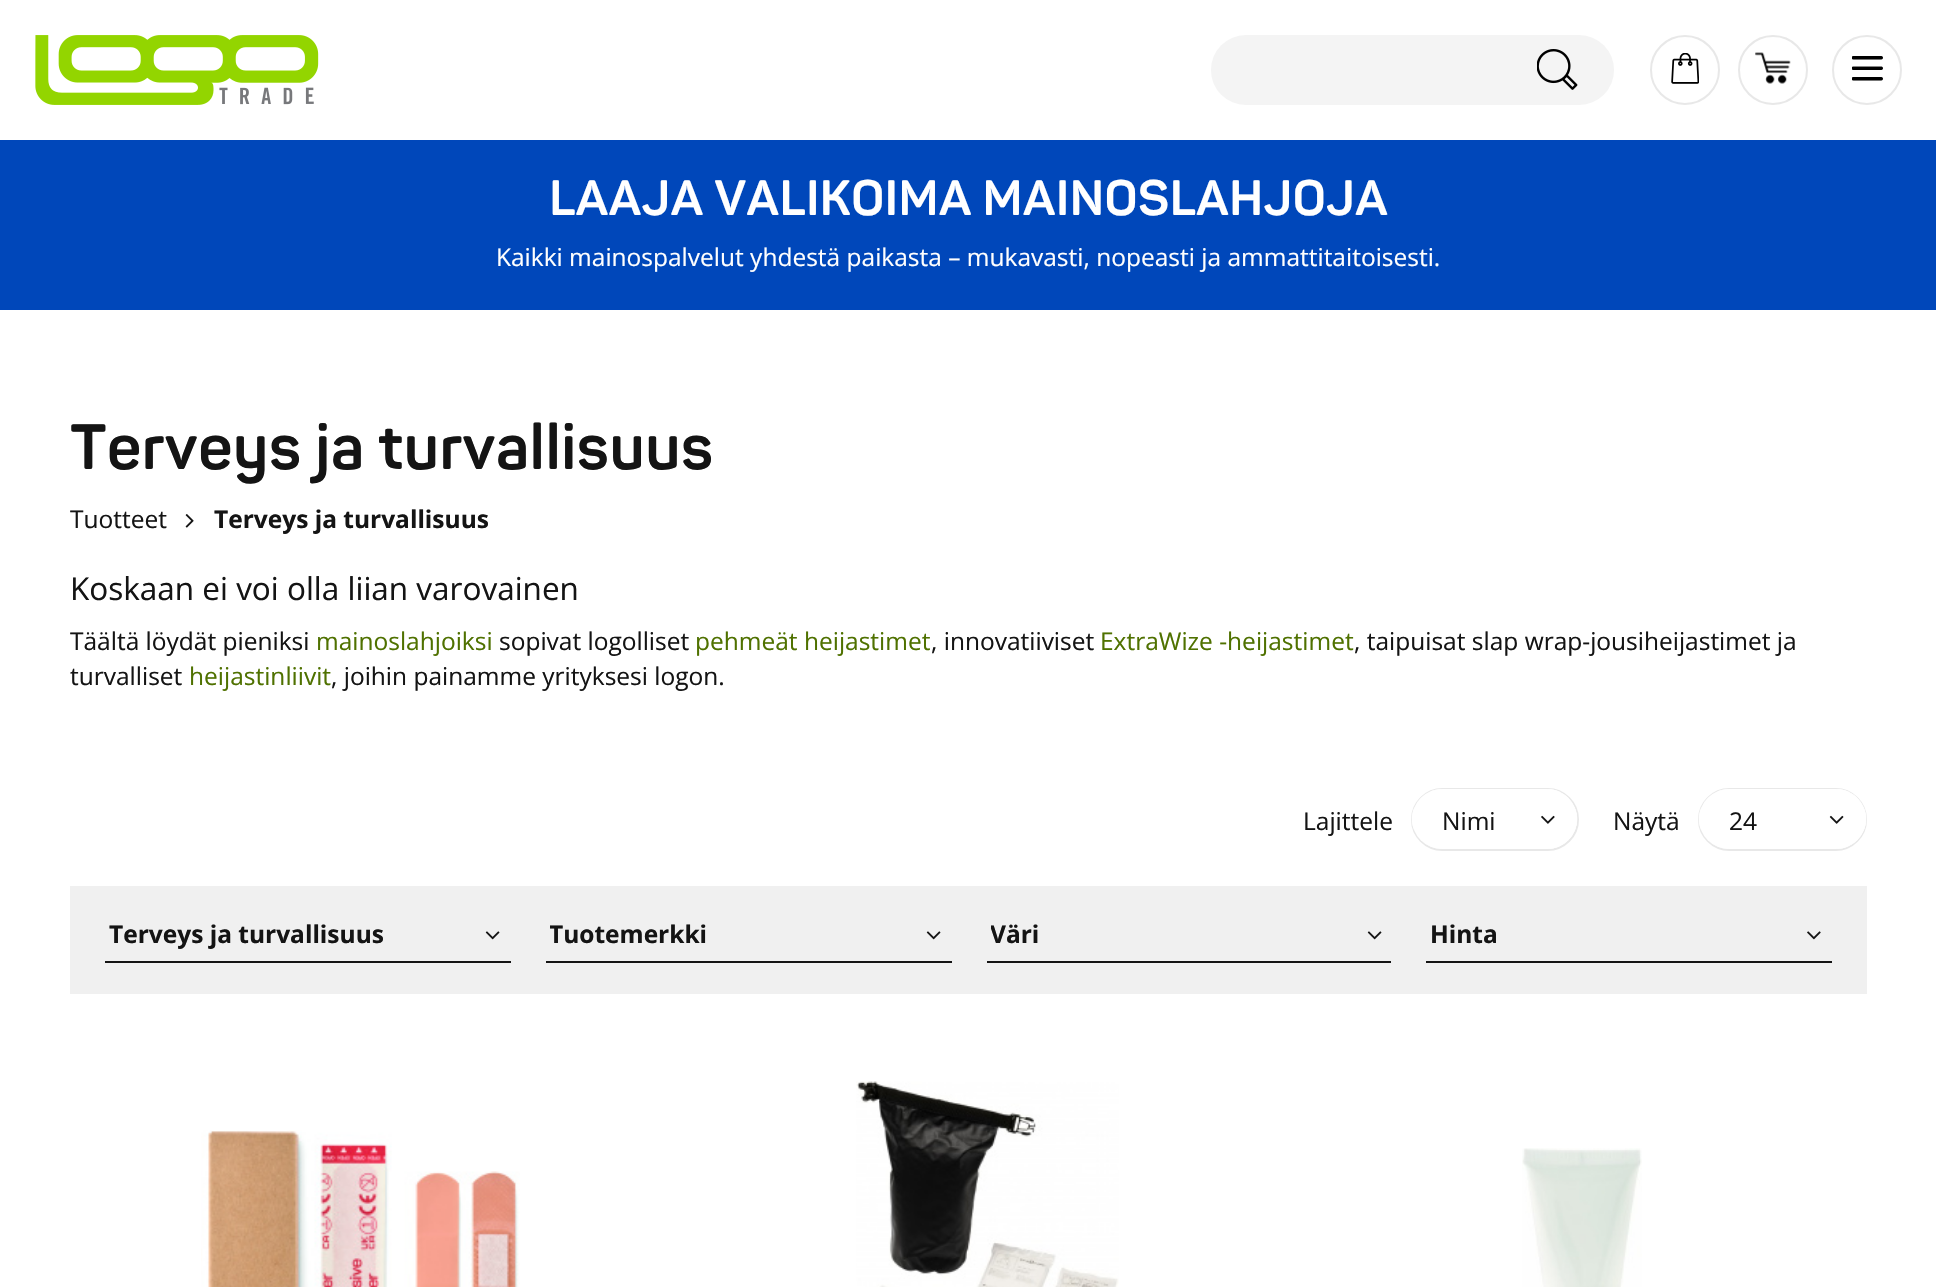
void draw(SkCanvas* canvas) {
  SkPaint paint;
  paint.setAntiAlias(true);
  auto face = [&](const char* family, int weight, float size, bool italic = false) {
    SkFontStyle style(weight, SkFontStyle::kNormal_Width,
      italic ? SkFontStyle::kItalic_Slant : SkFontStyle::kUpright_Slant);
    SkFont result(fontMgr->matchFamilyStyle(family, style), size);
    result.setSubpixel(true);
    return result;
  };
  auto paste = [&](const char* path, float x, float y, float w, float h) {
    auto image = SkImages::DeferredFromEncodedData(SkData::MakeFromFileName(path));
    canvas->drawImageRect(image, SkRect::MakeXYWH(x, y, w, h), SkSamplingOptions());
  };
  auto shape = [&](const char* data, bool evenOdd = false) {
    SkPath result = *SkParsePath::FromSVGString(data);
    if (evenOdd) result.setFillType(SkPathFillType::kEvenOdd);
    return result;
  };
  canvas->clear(0xffffffff);
  paste("img/1.png", 35, 35, 284, 70);
  paint.setStroke(true);
  paint.setStrokeWidth(2);
  paint.setColor(0xffe8e8e8);
  canvas->drawCircle(1685, 70, 34, paint);
  paste("img/2.png", 1671, 53, 28, 31);
  canvas->drawCircle(1773, 70, 34, paint);
  paste("img/3.png", 1755, 52, 36, 32);
  canvas->drawCircle(1867, 70, 34, paint);
  paste("img/4.png", 1852, 56, 31, 25);
  paint.setStroke(false);
  paint.setColor(0xfff4f4f4);
  canvas->drawRoundRect(SkRect::MakeXYWH(1211, 35, 403, 70), 35, 35, paint);
  paste("img/5.png", 1537, 49, 41, 41);
  paint.setColor(0xff0047ba);
  canvas->drawRect(SkRect::MakeXYWH(0, 140, 1936, 170), paint);
  paste("img/6.png", 185, 514, 9, 14);
  paint.setStroke(true);
  paint.setColor(0xffe8e8e8);
  canvas->drawRoundRect(SkRect::MakeXYWH(1412, 789, 166, 61), 30.5f, 30.5f, paint);
  paint.setStroke(false);
  paint.setColor(0xffffffff);
  canvas->drawRoundRect(SkRect::MakeXYWH(1412, 789, 165, 60), 30, 30, paint);
  canvas->drawPath(shape("M1442 789C1438 789 1435 790 1431 791H1558C1554 790 1551 789 1547 789ZM1575 808C1578 815 1578 823 1575 830ZM1414 830C1411 823 1411 815 1414 808Z", true), paint);
  canvas->drawPath(shape("M1524 789H1547C1563.5 789 1577 802.5 1577 819C1577 835.5 1563.5 849 1547 849H1524Z"), paint);
  paste("img/7.png", 1541, 815, 14, 9);
  paint.setStroke(true);
  paint.setColor(0xffe8e8e8);
  canvas->drawRoundRect(SkRect::MakeXYWH(1699, 789, 167, 61), 30.5f, 30.5f, paint);
  paint.setStroke(false);
  paint.setColor(0xffffffff);
  canvas->drawRoundRect(SkRect::MakeXYWH(1699, 789, 167, 60), 30, 30, paint);
  canvas->drawPath(shape("M1729 789C1725 789 1722 790 1718 791H1847C1843 790 1840 789 1836 789ZM1864 808C1867 815 1867 823 1864 830ZM1701 830C1698 823 1698 815 1701 808Z", true), paint);
  canvas->drawPath(shape("M1813 789H1836C1852.5 789 1866 802.5 1866 819C1866 835.5 1852.5 849 1836 849H1813Z"), paint);
  paste("img/8.png", 1829, 815, 15, 9);
  paint.setColor(0xfff0f0f0);
  canvas->drawRect(SkRect::MakeXYWH(70, 886, 1797, 108), paint);
  paint.setColor(0xff141414);
  canvas->drawRect(SkRect::MakeXYWH(105, 961, 406, 2), paint);
  paste("img/9.png", 485, 931, 15, 9);
  canvas->drawRect(SkRect::MakeXYWH(546, 961, 406, 2), paint);
  paste("img/9.png", 926, 931, 15, 9);
  canvas->drawRect(SkRect::MakeXYWH(987, 961, 404, 2), paint);
  paste("img/9.png", 1367, 931, 15, 9);
  canvas->drawRect(SkRect::MakeXYWH(1426, 961, 406, 2), paint);
  paste("img/10.png", 1807, 931, 14, 9);
  paste("img/11.png", 201, 1130, 319, 157);
  paste("img/12.png", 856, 1081, 263, 206);
  paste("img/13.png", 1522, 1148, 120, 139);
  auto f0 = face("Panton", 700, 49);
  paint.setColor(0xffffffff);
  canvas->drawString("LAAJA VALIKOIMA MAINOSLAHJOJA", 549, 215, f0, paint);
  auto f1 = face("Open Sans", 400, 24.5f);
  canvas->drawString("Kaikki mainospalvelut yhdestä paikasta – mukavasti, nopeasti ja ammattitaitoisesti.", 496, 266, f1, paint);
  auto f2 = face("Panton", 700, 63);
  paint.setColor(0xff141414);
  canvas->drawString("Terveys ja turvallisuus", 70, 469, f2, paint);
  canvas->drawString("Tuotteet", 70, 528, f1, paint);
  auto f3 = face("Open Sans", 700, 24.5f);
  canvas->drawString("Terveys ja turvallisuus", 214, 528, f3, paint);
  auto f4 = face("Open Sans", 400, 31.5f);
  canvas->drawString("Koskaan ei voi olla liian varovainen", 70, 600, f4, paint);
  canvas->drawString("Täältä löydät pieniksi", 70, 650, f1, paint);
  paint.setColor(0xff4f7100);
  canvas->drawString("mainoslahjoiksi", 316, 650, f1, paint);
  paint.setColor(0xff141414);
  canvas->drawString("sopivat logolliset", 499, 650, f1, paint);
  paint.setColor(0xff4f7100);
  canvas->drawString("pehmeät heijastimet", 695, 650, f1, paint);
  paint.setColor(0xff141414);
  canvas->drawString(", innovatiiviset", 931, 650, f1, paint);
  paint.setColor(0xff4f7100);
  canvas->drawString("ExtraWize -heijastimet", 1100, 650, f1, paint);
  paint.setColor(0xff141414);
  canvas->drawString(", taipuisat slap wrap-jousiheijastimet ja", 1354, 650, f1, paint);
  canvas->drawString("turvalliset", 70, 685, f1, paint);
  paint.setColor(0xff4f7100);
  canvas->drawString("heijastinliivit", 189, 685, f1, paint);
  paint.setColor(0xff141414);
  {
    const struct { const char* s; float x, y; } items[] = {
      {", joihin painamme yrityksesi logon.", 331, 685},
      {"Lajittele", 1303, 830},
      {"Nimi", 1442, 830},
      {"Näytä", 1613, 830},
      {"24", 1729, 830},
    };
    for (auto [s, x, y] : items) {
      canvas->drawString(s, x, y, f1, paint);
    }
  }
  canvas->drawString("Terveys ja turvallisuus", 109, 943, f3, paint);
  canvas->save();
  canvas->clipRect(SkRect::MakeXYWH(550, 917, 367, 35));
  canvas->drawString("Tuotemerkki", 549, 943, f3, paint);
  canvas->restore();
  canvas->save();
  canvas->clipRect(SkRect::MakeXYWH(991, 917, 365, 35));
  canvas->drawString("Väri", 990, 943, f3, paint);
  canvas->restore();
  canvas->drawString("Hinta", 1430, 943, f3, paint);
}
